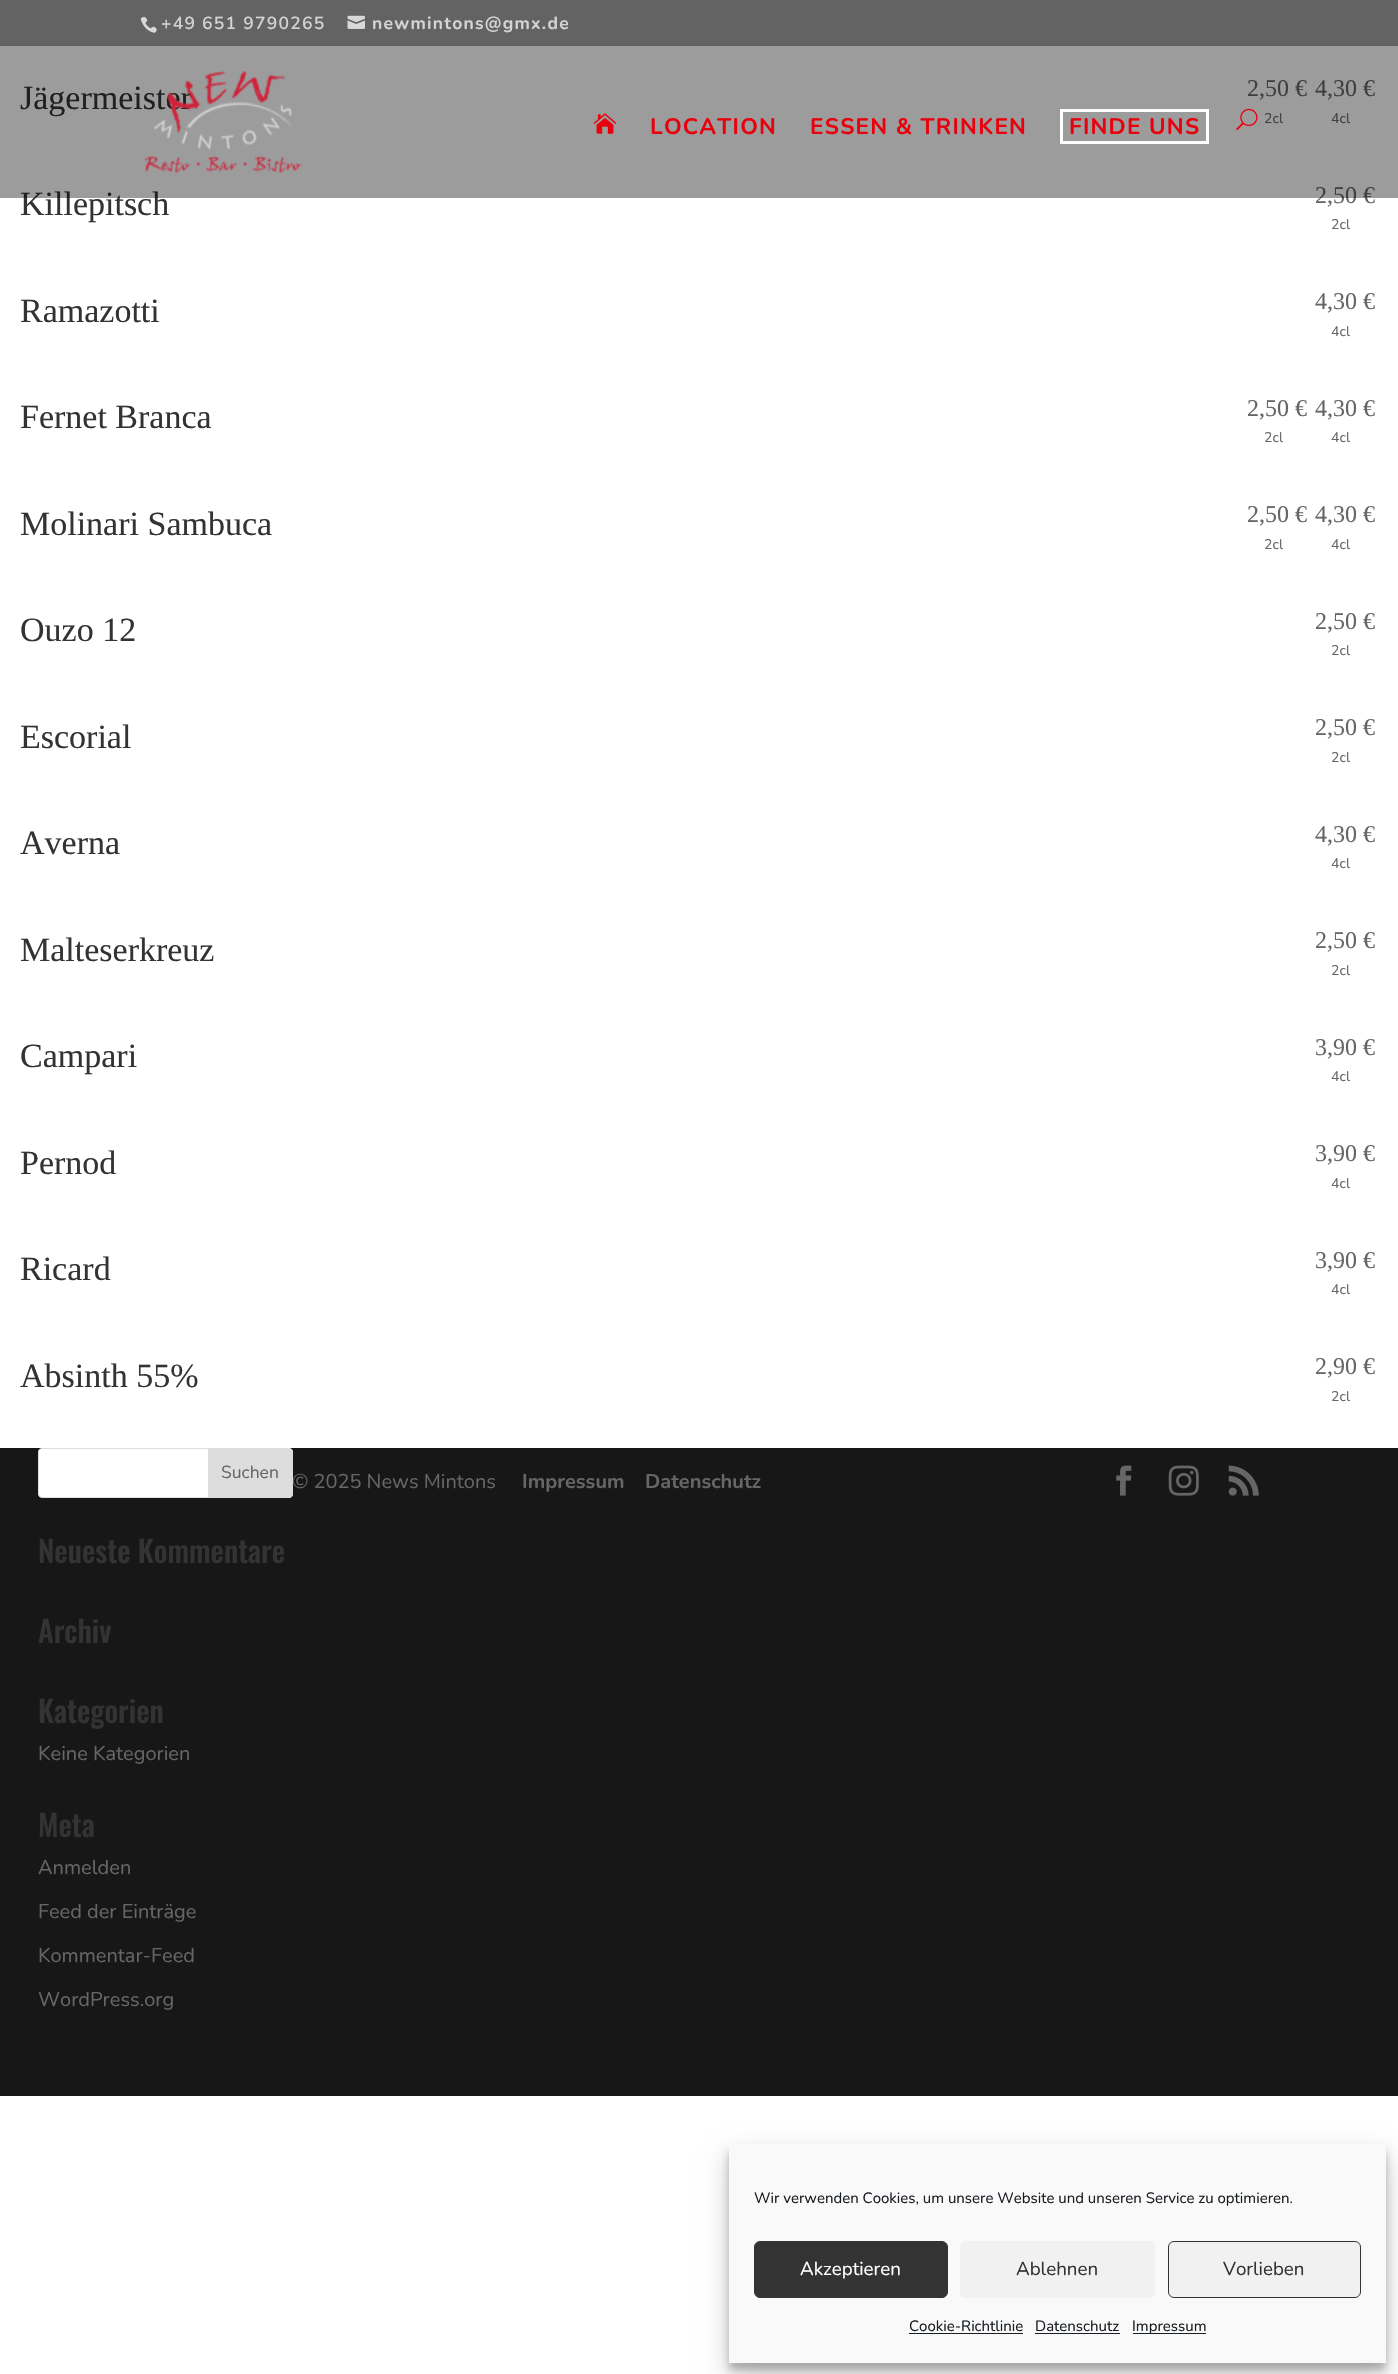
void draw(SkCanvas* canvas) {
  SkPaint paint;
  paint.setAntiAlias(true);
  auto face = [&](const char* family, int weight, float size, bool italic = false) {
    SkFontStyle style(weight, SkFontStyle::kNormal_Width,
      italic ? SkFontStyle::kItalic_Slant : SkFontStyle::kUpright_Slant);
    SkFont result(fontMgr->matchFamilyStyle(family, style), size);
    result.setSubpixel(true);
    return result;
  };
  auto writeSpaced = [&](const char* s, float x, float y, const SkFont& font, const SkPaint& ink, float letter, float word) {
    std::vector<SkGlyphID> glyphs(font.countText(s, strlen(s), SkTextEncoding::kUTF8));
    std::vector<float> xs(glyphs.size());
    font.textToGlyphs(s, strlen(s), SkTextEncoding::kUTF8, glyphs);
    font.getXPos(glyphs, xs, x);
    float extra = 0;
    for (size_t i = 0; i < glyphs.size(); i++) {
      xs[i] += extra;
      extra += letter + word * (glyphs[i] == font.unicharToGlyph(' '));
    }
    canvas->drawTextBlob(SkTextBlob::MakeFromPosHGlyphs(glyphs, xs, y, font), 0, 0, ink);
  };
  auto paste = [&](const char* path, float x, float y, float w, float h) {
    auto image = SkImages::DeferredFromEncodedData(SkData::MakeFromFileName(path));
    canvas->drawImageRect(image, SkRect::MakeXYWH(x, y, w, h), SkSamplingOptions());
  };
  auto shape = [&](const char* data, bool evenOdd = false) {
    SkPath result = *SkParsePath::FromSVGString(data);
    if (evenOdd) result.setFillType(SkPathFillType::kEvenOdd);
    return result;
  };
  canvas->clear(0xffffffff);
  paint.setColor(0xb5232323);
  canvas->drawRect(SkRect::MakeXYWH(0, 0, 1398, 46), paint);
  paste("img/1.png", 140, 16, 17, 17);
  paste("img/2.png", 347, 15, 18, 14);
  paint.setColor(0xff171717);
  canvas->drawRect(SkRect::MakeXYWH(0, 1448, 1398, 648), paint);
  paint.setColor(0xffffffff);
  canvas->drawRoundRect(SkRect::MakeXYWH(38.5f, 1448.5f, 254, 49), 3.5f, 3.5f, paint);
  paint.setStroke(true);
  paint.setStrokeWidth(1);
  paint.setColor(0xffdddddd);
  canvas->drawRoundRect(SkRect::MakeXYWH(38.5f, 1448.5f, 254, 49), 3.5f, 3.5f, paint);
  paint.setStroke(false);
  canvas->drawPath(shape("M208.5 1448.5H289C291 1448.5 292.5 1450 292.5 1452V1494C292.5 1496 291 1497.5 289 1497.5H208.5Z"), paint);
  paint.setStroke(true);
  canvas->drawPath(shape("M208.5 1448.5H289C291 1448.5 292.5 1450 292.5 1452V1494C292.5 1496 291 1497.5 289 1497.5H208.5Z"), paint);
  paste("img/3.png", 1116, 1465, 16, 31);
  paste("img/4.png", 1168, 1465, 31, 31);
  paste("img/5.png", 1228, 1465, 31, 31);
  paint.setStroke(false);
  paint.setColor(0x3b000000);
  paint.setMaskFilter(SkMaskFilter::MakeBlur(kNormal_SkBlurStyle, 4));
  canvas->drawRect(SkRect::MakeXYWH(729, 2151, 657, 219), paint);
  paint.setMaskFilter(nullptr);
  paint.setColor(0x30000000);
  paint.setMaskFilter(SkMaskFilter::MakeBlur(kNormal_SkBlurStyle, 12.5f));
  canvas->drawRect(SkRect::MakeXYWH(729, 2156, 657, 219), paint);
  paint.setMaskFilter(nullptr);
  paint.setColor(0xfff9f9f9);
  canvas->drawRect(SkRect::MakeXYWH(729, 2144, 657, 219), paint);
  paint.setColor(0xff333333);
  canvas->drawRoundRect(SkRect::MakeXYWH(754.5f, 2241.5f, 193, 56), 5.5f, 5.5f, paint);
  paint.setStroke(true);
  canvas->drawRoundRect(SkRect::MakeXYWH(754.5f, 2241.5f, 193, 56), 5.5f, 5.5f, paint);
  paint.setStroke(false);
  paint.setColor(0xfff1f1f1);
  canvas->drawRoundRect(SkRect::MakeXYWH(960, 2241, 195, 57), 6, 6, paint);
  canvas->drawRoundRect(SkRect::MakeXYWH(1168.5f, 2241.5f, 192, 56), 5.5f, 5.5f, paint);
  paint.setStroke(true);
  paint.setColor(0xff333333);
  canvas->drawRoundRect(SkRect::MakeXYWH(1168.5f, 2241.5f, 192, 56), 5.5f, 5.5f, paint);
  paint.setStroke(false);
  {
    const struct { float x, y, w, h; SkColor color; } items[] = {
      {909, 2333, 114, 1, 0xff191e23},
      {1035, 2333, 85, 1, 0xff191e23},
      {1133, 2333, 73, 1, 0xff191e23},
    };
    for (auto [x, y, w, h, color] : items) {
      paint.setColor(color);
      canvas->drawRect(SkRect::MakeXYWH(x, y, w, h), paint);
    }
  }
  auto f0 = face("Nunito", 600, 17.5f);
  paint.setColor(0xffd3d3d3);
  writeSpaced("+49 651 9790265", 161, 29, f0, paint, 1.25f, 0);
  auto f1 = face("Nunito", 700, 17.5f);
  writeSpaced("newmintons@gmx.de", 372, 29, f1, paint, 1.25f, 0);
  auto f2 = face("Liberation Serif", 400, 34);
  paint.setColor(0xff333333);
  canvas->drawString("Jägermeister", 20, 109, f2, paint);
  auto f3 = face("Liberation Serif", 400, 24);
  paint.setColor(0xff666666);
  canvas->drawString("2,50 €", 1247, 96, f3, paint);
  auto f4 = face("Nunito", 400, 14);
  canvas->drawString("2cl", 1264, 123, f4, paint);
  canvas->drawString("4,30 €", 1315, 96, f3, paint);
  canvas->drawString("4cl", 1331, 123, f4, paint);
  paint.setColor(0xff333333);
  canvas->drawString("Killepitsch", 20, 215, f2, paint);
  paint.setColor(0xff666666);
  canvas->drawString("2,50 €", 1315, 203, f3, paint);
  canvas->drawString("2cl", 1331, 229, f4, paint);
  paint.setColor(0xff333333);
  canvas->drawString("Ramazotti", 20, 322, f2, paint);
  paint.setColor(0xff666666);
  canvas->drawString("4,30 €", 1315, 309, f3, paint);
  canvas->drawString("4cl", 1331, 336, f4, paint);
  paint.setColor(0xff333333);
  canvas->drawString("Fernet Branca", 20, 428, f2, paint);
  paint.setColor(0xff666666);
  canvas->drawString("2,50 €", 1247, 416, f3, paint);
  canvas->drawString("2cl", 1264, 442, f4, paint);
  canvas->drawString("4,30 €", 1315, 416, f3, paint);
  canvas->drawString("4cl", 1331, 442, f4, paint);
  paint.setColor(0xff333333);
  canvas->drawString("Molinari Sambuca", 20, 535, f2, paint);
  paint.setColor(0xff666666);
  canvas->drawString("2,50 €", 1247, 522, f3, paint);
  canvas->drawString("2cl", 1264, 549, f4, paint);
  canvas->drawString("4,30 €", 1315, 522, f3, paint);
  canvas->drawString("4cl", 1331, 549, f4, paint);
  paint.setColor(0xff333333);
  canvas->drawString("Ouzo 12", 20, 641, f2, paint);
  paint.setColor(0xff666666);
  canvas->drawString("2,50 €", 1315, 629, f3, paint);
  canvas->drawString("2cl", 1331, 655, f4, paint);
  paint.setColor(0xff333333);
  canvas->drawString("Escorial", 20, 748, f2, paint);
  paint.setColor(0xff666666);
  canvas->drawString("2,50 €", 1315, 735, f3, paint);
  canvas->drawString("2cl", 1331, 762, f4, paint);
  paint.setColor(0xff333333);
  canvas->drawString("Averna", 20, 854, f2, paint);
  paint.setColor(0xff666666);
  canvas->drawString("4,30 €", 1315, 842, f3, paint);
  canvas->drawString("4cl", 1331, 868, f4, paint);
  paint.setColor(0xff333333);
  canvas->drawString("Malteserkreuz", 20, 961, f2, paint);
  paint.setColor(0xff666666);
  canvas->drawString("2,50 €", 1315, 948, f3, paint);
  canvas->drawString("2cl", 1331, 975, f4, paint);
  paint.setColor(0xff333333);
  canvas->drawString("Campari", 20, 1067, f2, paint);
  paint.setColor(0xff666666);
  canvas->drawString("3,90 €", 1315, 1055, f3, paint);
  canvas->drawString("4cl", 1331, 1081, f4, paint);
  paint.setColor(0xff333333);
  canvas->drawString("Pernod", 20, 1174, f2, paint);
  paint.setColor(0xff666666);
  canvas->drawString("3,90 €", 1315, 1161, f3, paint);
  canvas->drawString("4cl", 1331, 1188, f4, paint);
  paint.setColor(0xff333333);
  canvas->drawString("Ricard", 20, 1280, f2, paint);
  paint.setColor(0xff666666);
  canvas->drawString("3,90 €", 1315, 1268, f3, paint);
  canvas->drawString("4cl", 1331, 1294, f4, paint);
  paint.setColor(0xff333333);
  canvas->drawString("Absinth 55%", 20, 1387, f2, paint);
  paint.setColor(0xff666666);
  canvas->drawString("2,90 €", 1315, 1374, f3, paint);
  canvas->drawString("2cl", 1331, 1401, f4, paint);
  auto f5 = face("Nunito", 400, 17.5f);
  canvas->drawString("Suchen", 221, 1478, f5, paint);
  auto f6 = face("Oswald", 500, 30);
  paint.setColor(0xff333333);
  {
    const struct { const char* s; float x, y; } items[] = {
      {"Neueste Kommentare", 38, 1563},
      {"Archiv", 38, 1643},
      {"Kategorien", 38, 1723},
    };
    for (auto [s, x, y] : items) {
      canvas->drawString(s, x, y, f6, paint);
    }
  }
  auto f7 = face("Nunito", 400, 20);
  paint.setColor(0xff666666);
  canvas->drawString("Keine Kategorien", 38, 1760, f7, paint);
  paint.setColor(0xff333333);
  canvas->drawString("Meta", 38, 1837, f6, paint);
  paint.setColor(0xff666666);
  {
    const struct { const char* s; float x, y; } items[] = {
      {"Anmelden", 38, 1874},
      {"Feed der Einträge", 38, 1918},
      {"Kommentar-Feed", 38, 1962},
      {"WordPress.org", 38, 2006},
      {"© 2025 News Mintons", 292, 1488},
    };
    for (auto [s, x, y] : items) {
      canvas->drawString(s, x, y, f7, paint);
    }
  }
  auto f8 = face("Nunito", 700, 20);
  canvas->drawString("Impressum", 522, 1488, f8, paint);
  canvas->drawString("Datenschutz", 645, 1488, f8, paint);
  paint.setColor(0x63000000);
  canvas->drawRect(SkRect::MakeXYWH(0, 46, 1398, 152), paint);
  paste("img/6.png", 145, 71, 157, 103);
  paste("img/7.png", 593, 113, 24, 21);
  auto f9 = face("Nunito", 700, 22.5f);
  paint.setColor(0xffe8000c);
  writeSpaced("LOCATION", 650, 134, f9, paint, 1.25f, 0);
  writeSpaced("ESSEN & TRINKEN", 810, 134, f9, paint, 1.25f, 0);
  paint.setStroke(true);
  paint.setStrokeWidth(3);
  paint.setColor(0xffffffff);
  canvas->drawRect(SkRect::MakeXYWH(1061.5f, 110.5f, 146, 32), paint);
  paint.setStroke(false);
  paint.setColor(0xffe8000c);
  writeSpaced("FINDE UNS", 1069, 134, f9, paint, 1.25f, 0);
  paste("img/8.png", 1236, 108, 22, 23);
  auto f10 = face("Nunito", 400, 15);
  paint.setColor(0xff191e23);
  canvas->drawString("Wir verwenden Cookies, um unsere Website und unseren Service zu optimieren.", 754, 2203, f10, paint);
  auto f11 = face("Nunito", 400, 18.75f);
  paint.setColor(0xffffffff);
  canvas->drawString("Akzeptieren", 800, 2275, f11, paint);
  paint.setColor(0xff333333);
  canvas->drawString("Ablehnen", 1016, 2275, f11, paint);
  canvas->drawString("Vorlieben", 1223, 2275, f11, paint);
  paint.setColor(0xff191e23);
  {
    const struct { const char* s; float x, y; } items[] = {
      {"Cookie-Richtlinie", 909, 2331},
      {"Datenschutz", 1035, 2331},
      {"Impressum", 1132, 2331},
    };
    for (auto [s, x, y] : items) {
      canvas->drawString(s, x, y, f10, paint);
    }
  }
}
